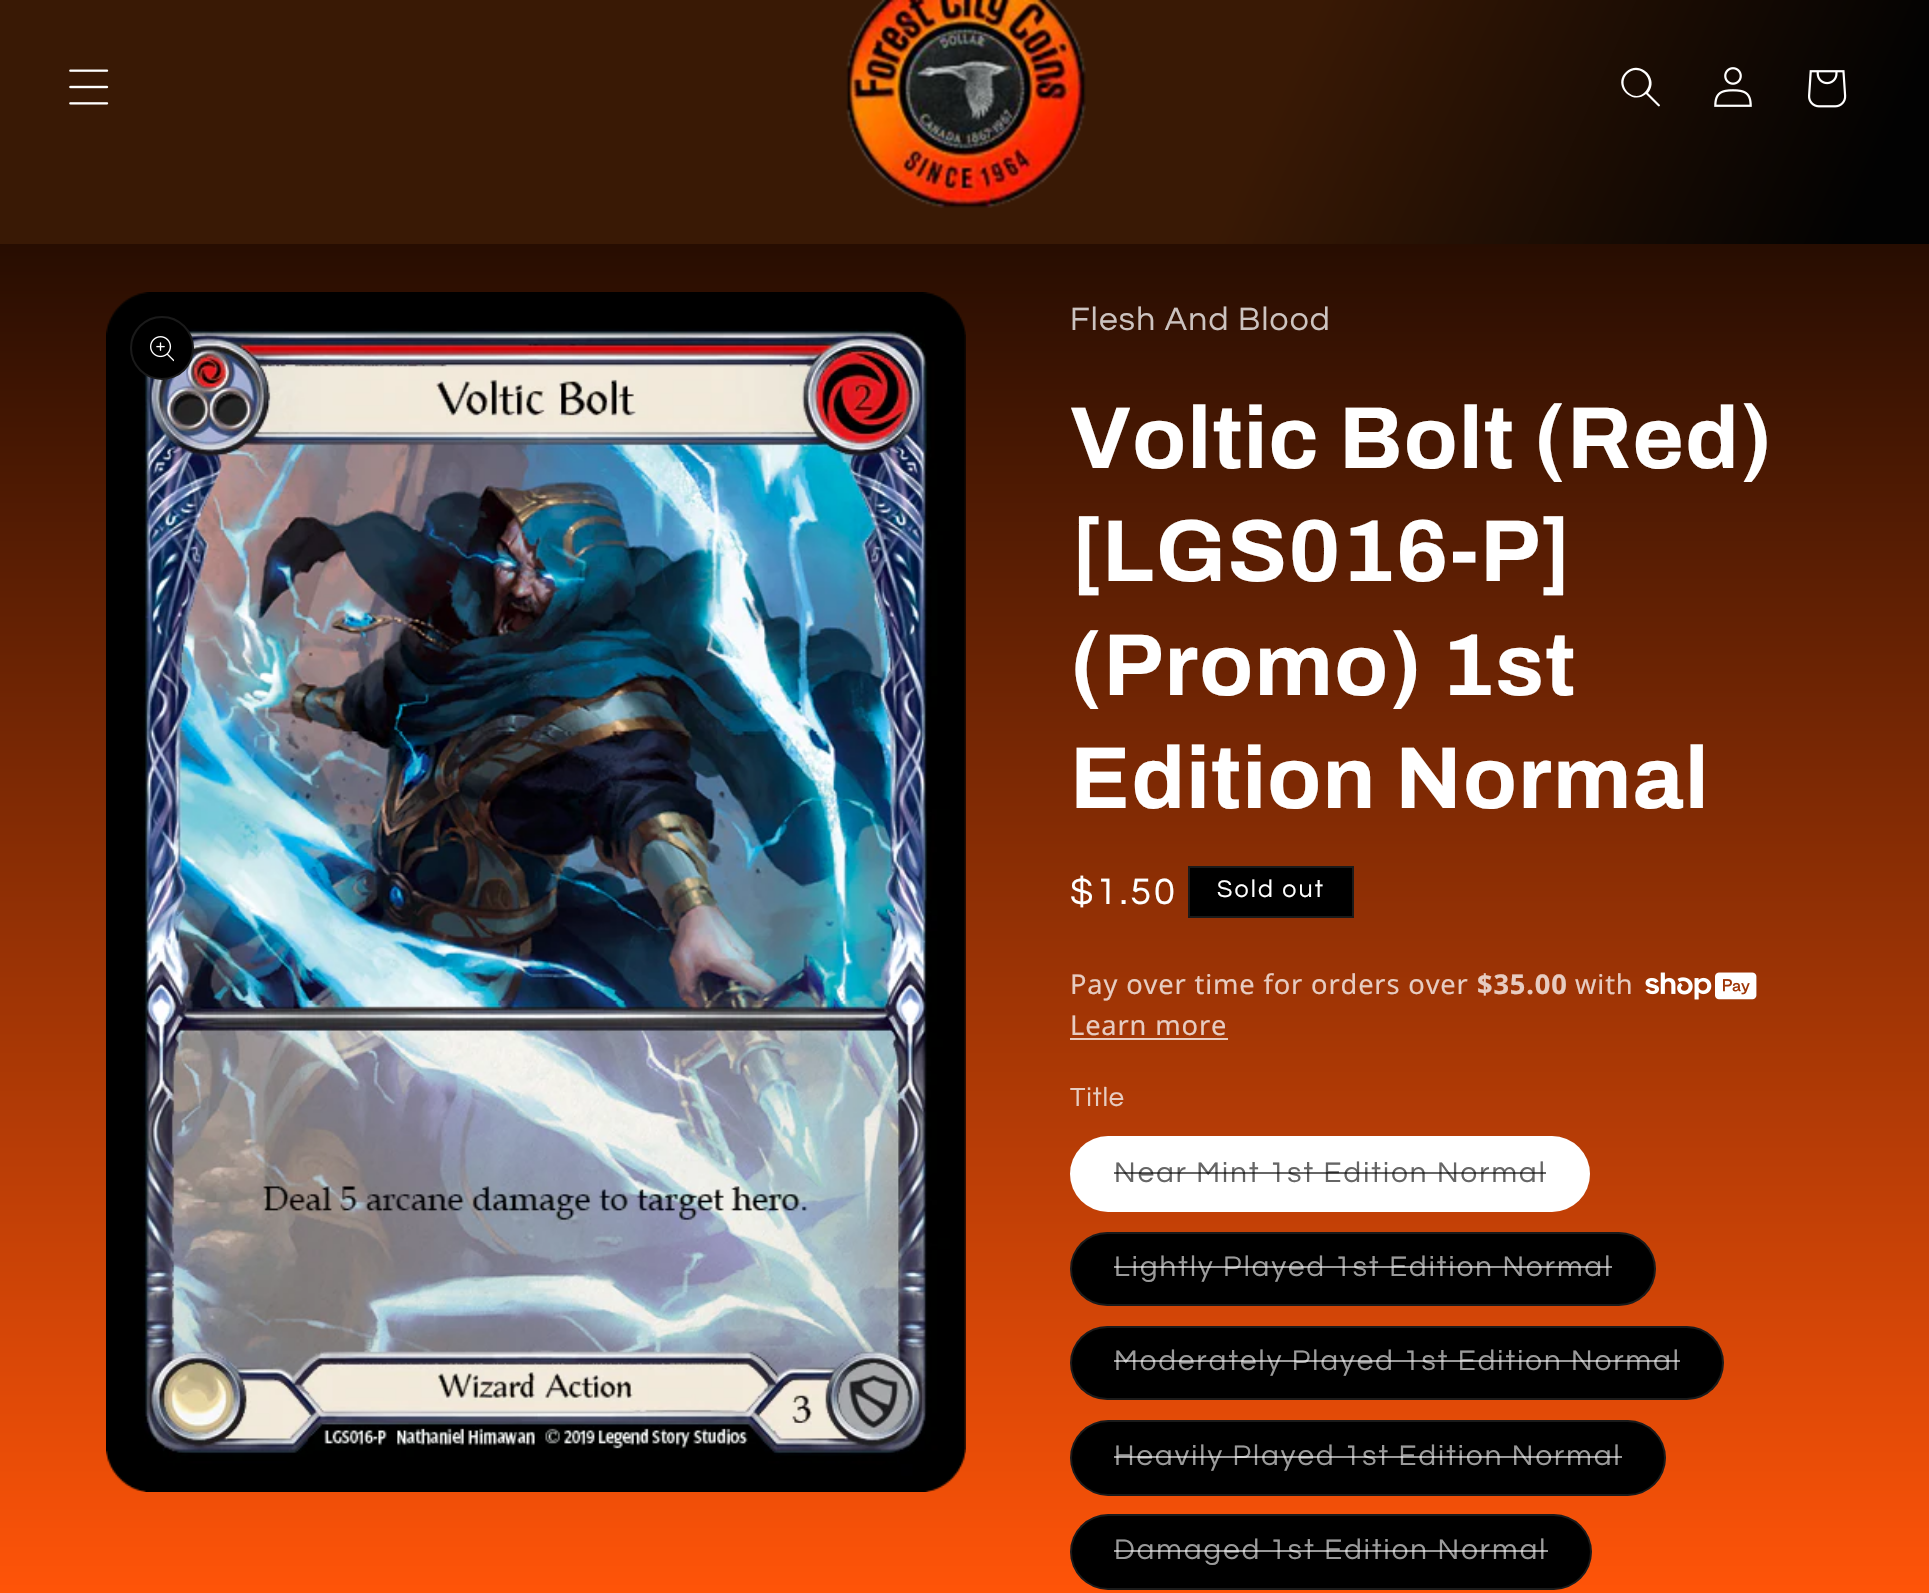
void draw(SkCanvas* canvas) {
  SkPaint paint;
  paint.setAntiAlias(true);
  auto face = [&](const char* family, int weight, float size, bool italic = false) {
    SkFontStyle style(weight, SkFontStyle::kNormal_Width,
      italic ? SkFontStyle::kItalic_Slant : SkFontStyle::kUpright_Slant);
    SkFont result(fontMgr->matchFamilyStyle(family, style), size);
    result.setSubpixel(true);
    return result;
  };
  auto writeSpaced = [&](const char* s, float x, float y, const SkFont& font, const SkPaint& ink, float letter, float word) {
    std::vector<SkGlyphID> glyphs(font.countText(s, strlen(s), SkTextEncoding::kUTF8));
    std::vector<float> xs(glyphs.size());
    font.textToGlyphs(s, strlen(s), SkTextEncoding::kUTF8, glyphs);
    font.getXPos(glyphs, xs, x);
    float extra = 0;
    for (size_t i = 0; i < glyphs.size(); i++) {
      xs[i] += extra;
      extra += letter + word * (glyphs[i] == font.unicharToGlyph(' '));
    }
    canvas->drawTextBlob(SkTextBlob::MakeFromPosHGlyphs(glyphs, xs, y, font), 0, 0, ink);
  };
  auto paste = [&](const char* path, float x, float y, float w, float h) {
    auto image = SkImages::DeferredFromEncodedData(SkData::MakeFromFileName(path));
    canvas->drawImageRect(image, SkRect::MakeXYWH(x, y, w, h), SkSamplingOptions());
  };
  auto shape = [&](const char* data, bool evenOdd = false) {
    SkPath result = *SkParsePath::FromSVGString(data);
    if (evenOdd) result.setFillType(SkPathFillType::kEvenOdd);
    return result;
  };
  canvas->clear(0xffffffff);
  {
    const SkColor colors[] = {0xff000000, 0xffff5408};
    const float stops[] = {0, 1};
    const SkPoint ends[] = {{965, 0}, {965, 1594}};
    paint.setShader(SkGradientShader::MakeLinear(ends, colors, stops, 2, SkTileMode::kClamp));
    paint.setAlpha(255);
  }
  canvas->drawRect(SkRect::MakeXYWH(0, 244, 1929, 1349), paint);
  {
    const SkColor colors[] = {0xff020202, 0xff391905};
    const float stops[] = {0.26f, 0.5f};
    const SkPoint ends[] = {{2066, 1287}, {-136, 307}};
    paint.setShader(SkGradientShader::MakeLinear(ends, colors, stops, 2, SkTileMode::kClamp));
    paint.setAlpha(255);
  }
  canvas->drawRect(SkRect::MakeXYWH(0, 0, 1929, 244), paint);
  paste("img/1.png", 69, 69, 40, 36);
  paste("img/2.png", 846, 0, 240, 208);
  paint.setShader(nullptr);
  paint.setColor(0xffffffff);
  canvas->drawPath(shape("M1645 92C1634 104 1616 86 1627 74C1639 62 1657 80 1645 92M1646 94C1632 106 1612 85 1626 72C1640 59 1660 79 1648 93L1660 105C1660 106 1659 107 1658 106Z", true), paint);
  paste("img/3.png", 1714, 67, 38, 40);
  paste("img/4.png", 1808, 70, 39, 38);
  paste("img/5.png", 106, 292, 860, 1200);
  paint.setColor(0xff000000);
  canvas->drawCircle(162, 348, 32, paint);
  paint.setStroke(true);
  paint.setStrokeWidth(2);
  paint.setColor(0x1affffff);
  canvas->drawCircle(162, 348, 31, paint);
  paste("img/6.png", 150, 336, 24, 26);
  paint.setStroke(false);
  paint.setColor(0xff000000);
  canvas->drawRect(SkRect::MakeXYWH(1189, 867, 164, 50), paint);
  paint.setStroke(true);
  paint.setColor(0xff1a1a1a);
  canvas->drawRect(SkRect::MakeXYWH(1189, 867, 164, 50), paint);
  paste("img/7.png", 1645, 972, 112, 28);
  paint.setStroke(false);
  paint.setColor(0xffe9cdc1);
  canvas->drawRect(SkRect::MakeXYWH(1070, 1038, 158, 2), paint);
  paint.setColor(0xffffffff);
  canvas->drawRoundRect(SkRect::MakeXYWH(1070, 1136, 520, 76), 38, 38, paint);
  paint.setStroke(true);
  paint.setColor(0x1affffff);
  canvas->drawRoundRect(SkRect::MakeXYWH(1071, 1137, 518, 74), 37, 37, paint);
  paint.setStroke(false);
  paint.setColor(0xff000000);
  canvas->drawRoundRect(SkRect::MakeXYWH(1070, 1232, 586, 74), 37, 37, paint);
  paint.setStroke(true);
  paint.setColor(0x1affffff);
  canvas->drawRoundRect(SkRect::MakeXYWH(1071, 1233, 584, 72), 36, 36, paint);
  paint.setStroke(false);
  paint.setColor(0xff000000);
  canvas->drawRoundRect(SkRect::MakeXYWH(1070, 1326, 654, 74), 37, 37, paint);
  paint.setStroke(true);
  paint.setColor(0x1affffff);
  canvas->drawRoundRect(SkRect::MakeXYWH(1071, 1327, 652, 72), 36, 36, paint);
  paint.setStroke(false);
  paint.setColor(0xff000000);
  canvas->drawRoundRect(SkRect::MakeXYWH(1070, 1420, 596, 76), 38, 38, paint);
  paint.setStroke(true);
  paint.setColor(0x1affffff);
  canvas->drawRoundRect(SkRect::MakeXYWH(1071, 1421, 594, 74), 37, 37, paint);
  paint.setStroke(false);
  paint.setColor(0xff000000);
  canvas->drawRoundRect(SkRect::MakeXYWH(1070, 1514, 522, 76), 38, 38, paint);
  paint.setStroke(true);
  paint.setColor(0x1affffff);
  canvas->drawRoundRect(SkRect::MakeXYWH(1071, 1515, 520, 74), 37, 37, paint);
  auto f0 = face("Questrial", 400, 33.5f);
  paint.setStroke(false);
  paint.setColor(0xffccc3c0);
  writeSpaced("Flesh And Blood", 1070, 330, f0, paint, 1.25f, 0);
  auto f1 = face("Archivo", 700, 88);
  paint.setColor(0xffffffff);
  {
    const struct { const char* s; float x, y; } items[] = {
      {"Voltic Bolt (Red)", 1070, 468},
      {"[LGS016-P]", 1070, 581},
      {"(Promo) 1st", 1070, 695},
      {"Edition Normal", 1070, 808},
    };
    for (auto [s, x, y] : items) {
      writeSpaced(s, x, y, f1, paint, 1.3f, 0);
    }
  }
  auto f2 = face("Questrial", 400, 38);
  writeSpaced("$1.50", 1070, 904, f2, paint, 2.75f, 0);
  auto f3 = face("Questrial", 400, 25);
  writeSpaced("Sold out", 1217, 897, f3, paint, 2.1f, 0);
  auto f4 = face("Noto Sans", 400, 27.25f);
  paint.setColor(0xffe7ccc1);
  writeSpaced("Pay over time for orders over", 1070, 994, f4, paint, 0.85f, 0);
  auto f5 = face("Noto Sans", 700, 27.25f);
  writeSpaced("$35.00", 1477, 994, f5, paint, 0.85f, 0);
  writeSpaced("with", 1575, 994, f4, paint, 0.85f, 0);
  writeSpaced("Learn more", 1070, 1035, f4, paint, 0.85f, 0);
  auto f6 = face("Questrial", 400, 27.25f);
  writeSpaced("Title", 1070, 1106, f6, paint, 0.85f, 0);
  auto f7 = face("Questrial", 400, 29.4f);
  paint.setColor(0xff666666);
  writeSpaced("Near Mint 1st Edition Normal", 1114, 1182, f7, paint, 2.1f, 0);
  paint.setColor(0x99000000);
  canvas->drawRect(SkRect::MakeXYWH(1114, 1172, 432, 2), paint);
  paint.setColor(0xff999999);
  writeSpaced("Lightly Played 1st Edition Normal", 1114, 1276, f7, paint, 2.1f, 0);
  paint.setColor(0x99ffffff);
  canvas->drawRect(SkRect::MakeXYWH(1114, 1266, 498, 2), paint);
  paint.setColor(0xff999999);
  writeSpaced("Moderately Played 1st Edition Normal", 1114, 1370, f7, paint, 2.1f, 0);
  paint.setColor(0x99ffffff);
  canvas->drawRect(SkRect::MakeXYWH(1114, 1360, 566, 2), paint);
  paint.setColor(0xff999999);
  writeSpaced("Heavily Played 1st Edition Normal", 1114, 1465, f7, paint, 2.1f, 0);
  paint.setColor(0x99ffffff);
  canvas->drawRect(SkRect::MakeXYWH(1114, 1456, 508, 2), paint);
  paint.setColor(0xff999999);
  writeSpaced("Damaged 1st Edition Normal", 1114, 1559, f7, paint, 2.1f, 0);
  paint.setColor(0x99ffffff);
  canvas->drawRect(SkRect::MakeXYWH(1114, 1550, 434, 2), paint);
}
